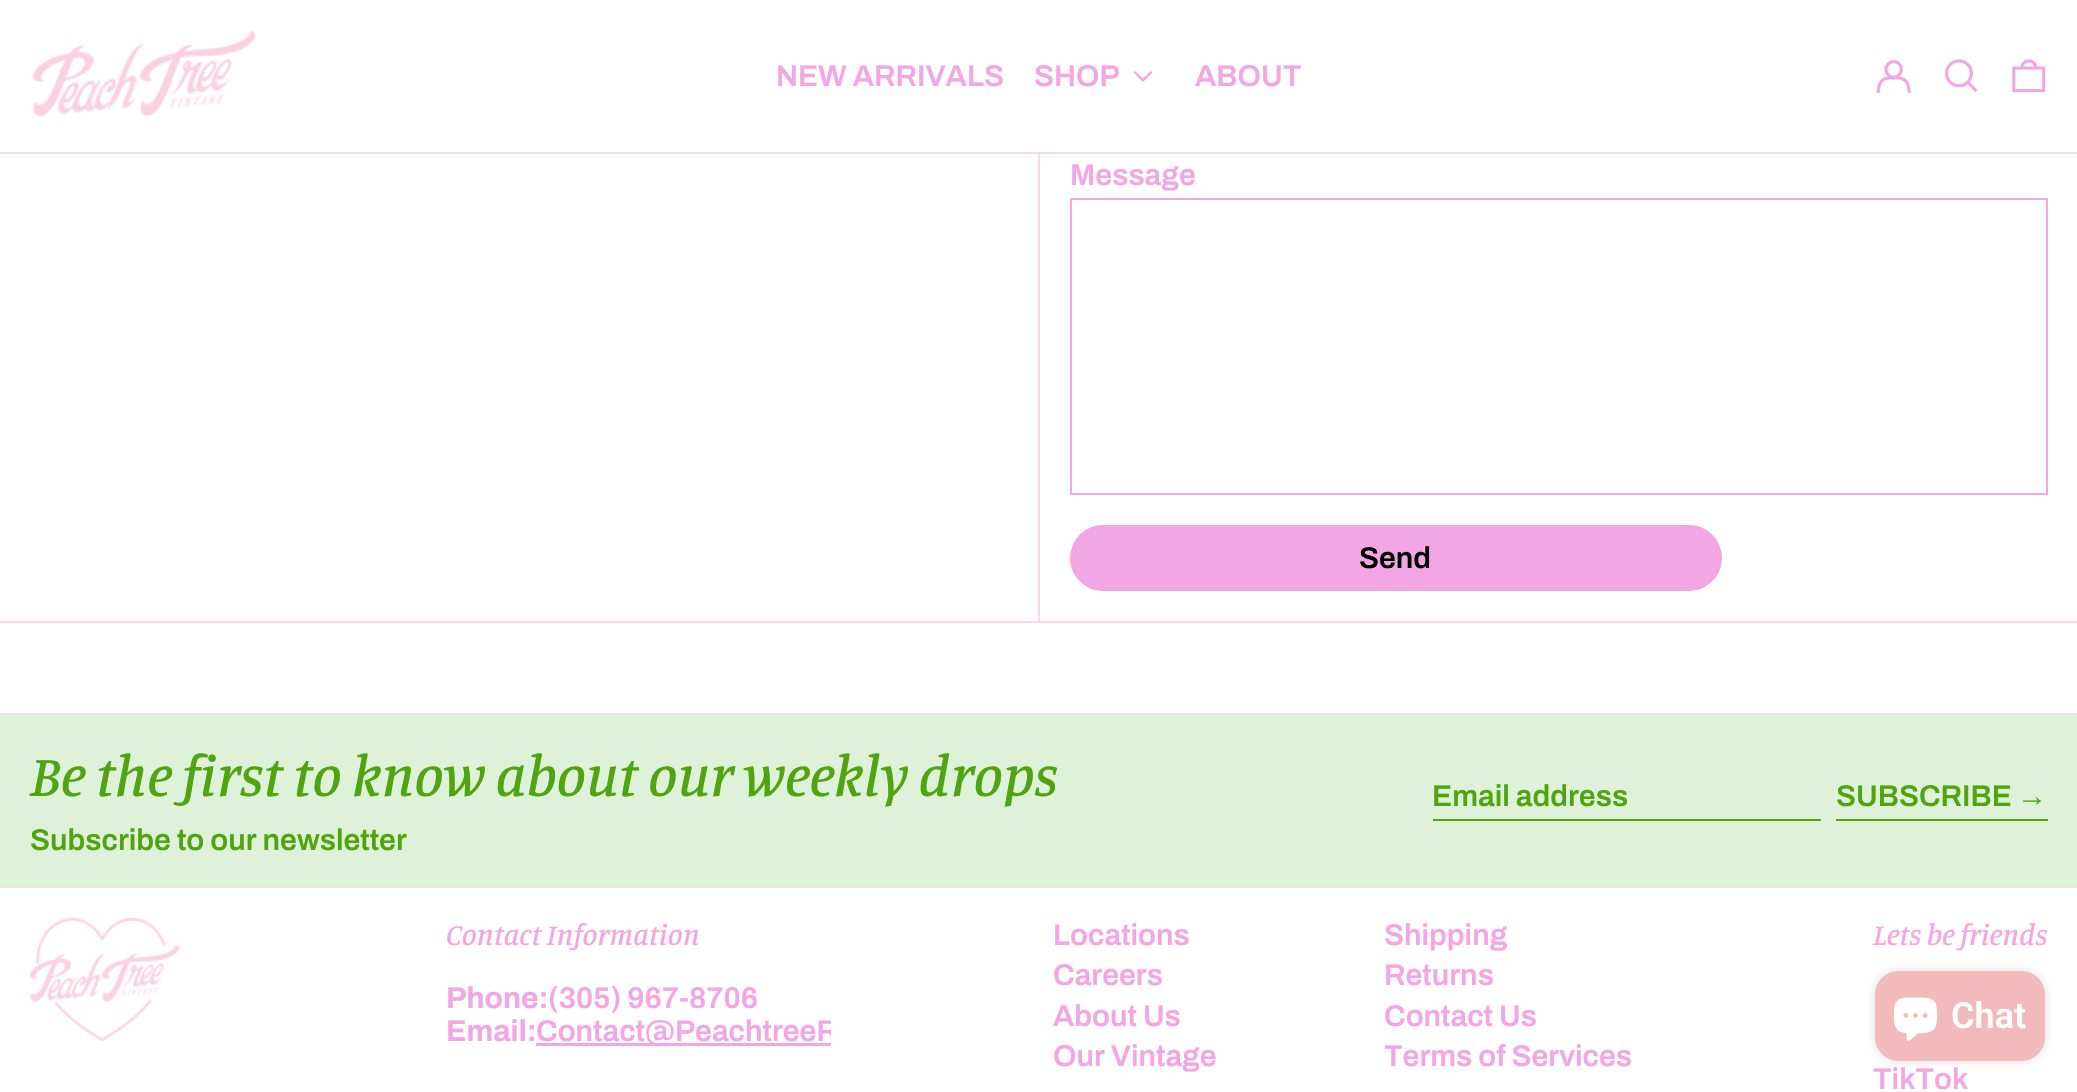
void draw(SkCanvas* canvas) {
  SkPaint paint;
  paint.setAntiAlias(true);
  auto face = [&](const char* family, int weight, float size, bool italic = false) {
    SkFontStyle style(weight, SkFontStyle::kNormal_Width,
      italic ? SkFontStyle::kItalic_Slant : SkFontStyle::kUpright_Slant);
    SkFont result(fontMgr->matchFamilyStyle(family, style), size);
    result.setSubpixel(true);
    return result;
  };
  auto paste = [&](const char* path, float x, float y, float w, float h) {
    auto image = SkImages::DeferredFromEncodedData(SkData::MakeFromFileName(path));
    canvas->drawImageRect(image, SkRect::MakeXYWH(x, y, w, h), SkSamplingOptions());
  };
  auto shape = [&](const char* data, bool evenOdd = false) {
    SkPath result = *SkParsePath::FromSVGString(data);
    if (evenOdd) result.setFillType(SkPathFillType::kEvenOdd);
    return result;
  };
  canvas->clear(0xffffffff);
  paint.setColor(0xfff4daef);
  canvas->drawRect(SkRect::MakeXYWH(0, 152, 2077, 2), paint);
  paste("img/1.png", 32, 30, 223, 87);
  paint.setColor(0xfff2a7e4);
  canvas->drawPath(shape("M1143 82L1133.5 72.5L1135 71L1143 78.5L1151 71L1152.5 72.5Z", true), paint);
  paste("img/2.png", 1876, 60, 35, 34);
  paste("img/3.png", 1945, 59, 33, 33);
  paste("img/4.png", 2012, 59, 34, 34);
  paint.setColor(0xfff4daef);
  canvas->drawRect(SkRect::MakeXYWH(1038, 154, 2, 467), paint);
  paint.setStroke(true);
  paint.setStrokeWidth(2);
  paint.setColor(0xfff2a7e4);
  canvas->drawRect(SkRect::MakeXYWH(1071, 199, 976, 295), paint);
  paint.setStroke(false);
  canvas->drawRoundRect(SkRect::MakeXYWH(1071, 526, 650, 64), 32, 32, paint);
  paint.setStroke(true);
  canvas->drawRoundRect(SkRect::MakeXYWH(1071, 526, 650, 64), 32, 32, paint);
  paint.setStroke(false);
  {
    const struct { float x, y, w, h; SkColor color; } items[] = {
      {0, 621, 2077, 2, 0xfff4daef},
      {0, 715, 2077, 172, 0xffdef2d9},
      {0, 713, 2077, 2, 0xfff4daef},
      {1433, 819, 388, 2, 0xff50a40f},
      {1836, 819, 212, 2, 0xff50a40f},
      {0, 887, 2077, 1, 0xfff4daef},
    };
    for (auto [x, y, w, h, color] : items) {
      paint.setColor(color);
      canvas->drawRect(SkRect::MakeXYWH(x, y, w, h), paint);
    }
  }
  paste("img/5.png", 30, 918, 150, 123);
  paint.setColor(0xfff2a7e4);
  canvas->drawRect(SkRect::MakeXYWH(536, 1043, 295, 3), paint);
  paint.setColor(0x26000000);
  paint.setMaskFilter(SkMaskFilter::MakeBlur(kNormal_SkBlurStyle, 4));
  canvas->drawRoundRect(SkRect::MakeXYWH(1875, 971, 170, 90), 24, 24, paint);
  paint.setMaskFilter(nullptr);
  paint.setColor(0xfff2baba);
  canvas->drawRoundRect(SkRect::MakeXYWH(1875, 971, 170, 90), 24, 24, paint);
  paste("img/6.png", 1893, 997, 45, 44);
  auto f0 = face("Archivo", 600, 30);
  paint.setColor(0xfff2a7e4);
  {
    const struct { const char* s; float x, y; } items[] = {
      {"NEW ARRIVALS", 776, 86},
      {"SHOP", 1034, 86},
      {"ABOUT", 1195, 86},
      {"Message", 1070, 185},
    };
    for (auto [s, x, y] : items) {
      canvas->drawString(s, x, y, f0, paint);
    }
  }
  paint.setColor(0xff000000);
  canvas->drawString("Send", 1359, 568, f0, paint);
  auto f1 = face("Manuale", 500, 58.6f, true);
  paint.setColor(0xff50a40f);
  canvas->drawString("Be the first to know about our weekly drops", 30, 796, f1, paint);
  {
    const struct { const char* s; float x, y; } items[] = {
      {"Subscribe to our newsletter", 30, 850},
      {"Email address", 1432, 806},
      {"SUBSCRIBE", 1836, 806},
    };
    for (auto [s, x, y] : items) {
      canvas->drawString(s, x, y, f0, paint);
    }
  }
  auto f2 = face("Liberation Sans", 700, 30);
  canvas->drawString("→", 2017, 806, f2, paint);
  auto f3 = face("Manuale", 500, 30, true);
  paint.setColor(0xfff2a7e4);
  canvas->drawString("Contact Information", 446, 945, f3, paint);
  auto f4 = face("Archivo", 700, 30);
  canvas->drawString("Phone:", 446, 1008, f4, paint);
  canvas->drawString("(305) 967-8706", 548, 1008, f0, paint);
  canvas->drawString("Email:", 446, 1041, f4, paint);
  canvas->save();
  canvas->clipRect(SkRect::MakeXYWH(416, 888, 415, 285));
  canvas->drawString("Contact@PeachtreeR", 536, 1041, f0, paint);
  canvas->restore();
  {
    const struct { const char* s; float x, y; } items[] = {
      {"Locations", 1053, 945},
      {"Careers", 1053, 985},
      {"About Us", 1053, 1026},
      {"Our Vintage", 1053, 1066},
      {"Shipping", 1384, 945},
      {"Returns", 1384, 985},
      {"Contact Us", 1384, 1026},
      {"Terms of Services", 1384, 1066},
    };
    for (auto [s, x, y] : items) {
      canvas->drawString(s, x, y, f0, paint);
    }
  }
  canvas->drawString("Lets be friends", 1873, 945, f3, paint);
  canvas->drawString("TikTok", 1873, 1089, f0, paint);
  auto f5 = face("Roboto", 600, 36);
  paint.setColor(0xffffffff);
  canvas->drawString("Chat", 1951, 1028, f5, paint);
}
